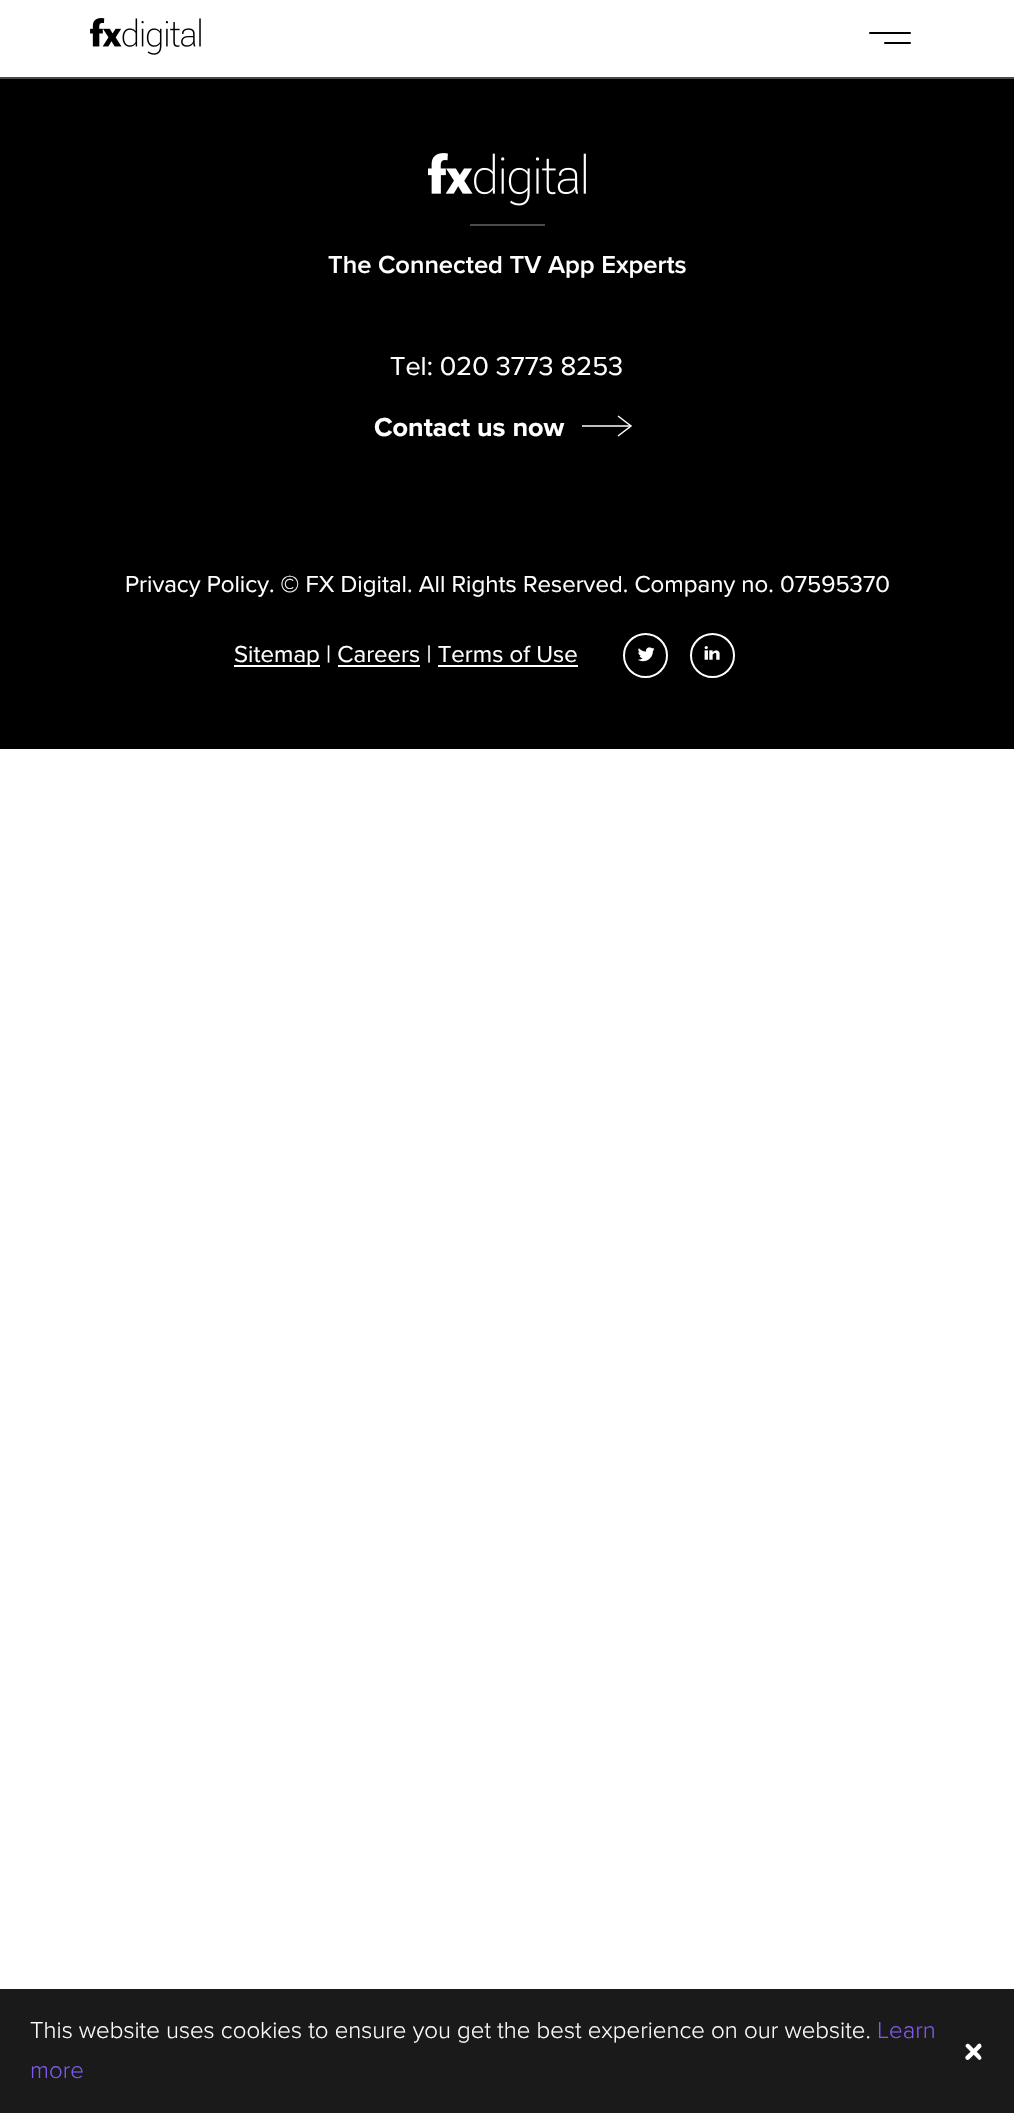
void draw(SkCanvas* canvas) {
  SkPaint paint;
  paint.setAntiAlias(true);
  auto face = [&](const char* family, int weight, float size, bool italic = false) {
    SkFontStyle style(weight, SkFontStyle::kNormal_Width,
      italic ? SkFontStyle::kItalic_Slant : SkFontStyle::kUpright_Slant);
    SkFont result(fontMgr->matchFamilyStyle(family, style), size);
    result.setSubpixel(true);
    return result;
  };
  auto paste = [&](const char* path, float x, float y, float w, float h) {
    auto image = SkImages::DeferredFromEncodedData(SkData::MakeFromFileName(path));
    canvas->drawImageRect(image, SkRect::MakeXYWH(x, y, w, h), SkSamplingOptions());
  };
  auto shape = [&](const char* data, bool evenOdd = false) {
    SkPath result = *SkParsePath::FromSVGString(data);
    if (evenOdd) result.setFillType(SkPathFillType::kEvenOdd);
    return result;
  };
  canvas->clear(0xffffffff);
  paste("img/1.png", 90, 18, 111, 37);
  paint.setColor(0xff000000);
  canvas->drawRoundRect(SkRect::MakeXYWH(869, 32, 42, 2), 1, 1, paint);
  canvas->drawRoundRect(SkRect::MakeXYWH(884, 42, 27, 2), 1, 1, paint);
  canvas->drawRect(SkRect::MakeXYWH(0, 79, 1014, 670), paint);
  paint.setColor(0xff4b4b4b);
  canvas->drawRect(SkRect::MakeXYWH(0, 77, 1014, 2), paint);
  paste("img/2.png", 428, 153, 158, 53);
  canvas->drawRect(SkRect::MakeXYWH(470, 224, 75, 2), paint);
  paint.setColor(0xffbfbfbf);
  canvas->drawRect(SkRect::MakeXYWH(582, 425, 48, 2), paint);
  paint.setStroke(true);
  paint.setStrokeWidth(1.5f);
  paint.setColor(0xffffffff);
  canvas->drawPath(shape("M618 416L631 426L618 436"), paint);
  paint.setStroke(false);
  {
    const struct { float x, y, w, h; SkColor color; } items[] = {
      {234, 665, 86, 2, 0xffffffff},
      {338, 665, 82, 2, 0xffffffff},
      {438, 665, 140, 2, 0xffffffff},
    };
    for (auto [x, y, w, h, color] : items) {
      paint.setColor(color);
      canvas->drawRect(SkRect::MakeXYWH(x, y, w, h), paint);
    }
  }
  paint.setStroke(true);
  paint.setStrokeWidth(2);
  canvas->drawCircle(645.5f, 655.5f, 21.5f, paint);
  paste("img/3.png", 638, 647, 17, 15);
  canvas->drawCircle(712.5f, 655.5f, 21.5f, paint);
  paste("img/4.png", 704, 646, 16, 14);
  paint.setStroke(false);
  paint.setColor(0xff1a1a1a);
  canvas->drawRect(SkRect::MakeXYWH(0, 1989, 1014, 124), paint);
  paint.setColor(0xffffffff);
  canvas->drawPath(shape("M969.5 2044.5L979 2054C980 2055.5 983 2058 980.5 2059.5C980 2060 979 2060 978.5 2059.5L966 2047C964.5 2045 967.5 2042.5 969.5 2044.5Z"), paint);
  canvas->drawPath(shape("M966 2056L976 2046.5C977 2045 979.5 2042 981 2044.5C981.5 2045.5 981.5 2046 981.5 2047L969 2059.5C966.5 2061 964 2058 966 2056Z"), paint);
  auto f0 = face("Proxima Nova", 600, 25.5f);
  canvas->drawString("The Connected TV App Experts", 328, 273, f0, paint);
  auto f1 = face("Proxima Nova", 400, 27);
  canvas->drawString("Tel: 020 3773 8253", 390, 375, f1, paint);
  auto f2 = face("Proxima Nova", 700, 27);
  canvas->drawString("Contact us now", 374, 436, f2, paint);
  auto f3 = face("Proxima Nova", 400, 24);
  canvas->drawString("Privacy Policy. © FX Digital. All Rights Reserved. Company no. 07595370", 125, 592, f3, paint);
  canvas->drawString("Sitemap | Careers | Terms of Use", 234, 662, f3, paint);
  auto f4 = face("Proxima Nova", 300, 24);
  canvas->drawString("This website uses cookies to ensure you get the best experience on our website.", 30, 2038, f4, paint);
  paint.setColor(0xff8059ef);
  canvas->drawString("Learn", 877, 2038, f4, paint);
  canvas->drawString("more", 30, 2078, f4, paint);
}
